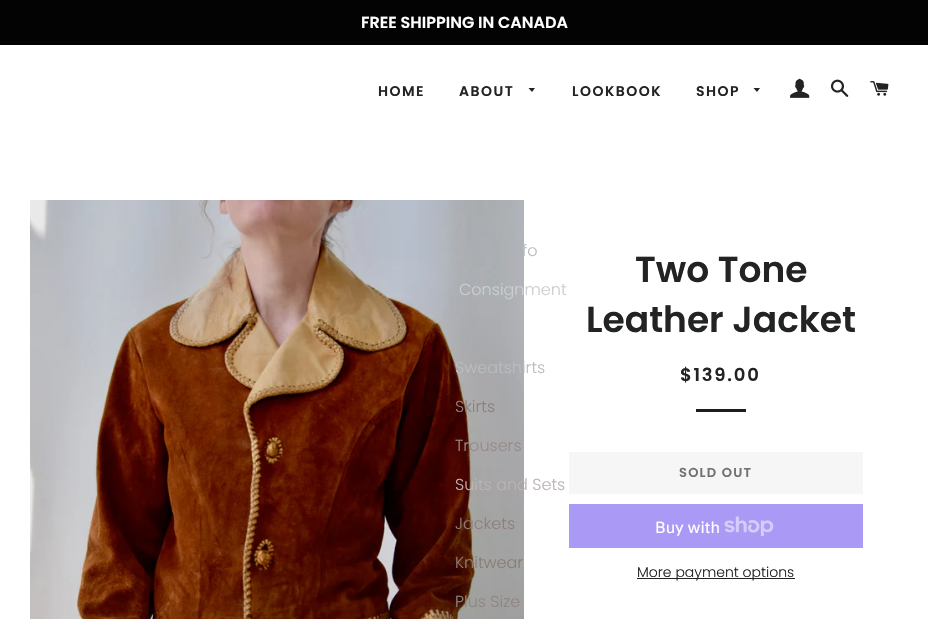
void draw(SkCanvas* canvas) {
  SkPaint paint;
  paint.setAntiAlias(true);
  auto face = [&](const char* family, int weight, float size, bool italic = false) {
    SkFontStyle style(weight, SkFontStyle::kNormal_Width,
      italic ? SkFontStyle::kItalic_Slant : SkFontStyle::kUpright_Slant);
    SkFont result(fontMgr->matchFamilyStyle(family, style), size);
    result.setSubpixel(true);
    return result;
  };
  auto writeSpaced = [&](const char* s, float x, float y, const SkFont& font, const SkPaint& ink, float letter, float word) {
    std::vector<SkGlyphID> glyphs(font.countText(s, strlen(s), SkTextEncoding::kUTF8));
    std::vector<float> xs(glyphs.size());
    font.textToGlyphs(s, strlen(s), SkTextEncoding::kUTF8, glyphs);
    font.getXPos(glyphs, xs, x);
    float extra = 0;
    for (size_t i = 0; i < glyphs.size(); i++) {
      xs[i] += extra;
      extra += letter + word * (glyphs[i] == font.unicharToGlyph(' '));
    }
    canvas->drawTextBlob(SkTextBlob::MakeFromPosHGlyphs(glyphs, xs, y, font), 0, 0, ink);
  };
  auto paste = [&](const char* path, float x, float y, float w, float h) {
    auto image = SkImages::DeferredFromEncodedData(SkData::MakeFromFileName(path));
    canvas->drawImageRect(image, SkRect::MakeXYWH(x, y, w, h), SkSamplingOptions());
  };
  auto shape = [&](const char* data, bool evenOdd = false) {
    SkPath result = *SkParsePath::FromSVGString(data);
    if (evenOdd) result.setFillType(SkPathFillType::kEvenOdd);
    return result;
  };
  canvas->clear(0xffffffff);
  paint.setColor(0xff030303);
  canvas->drawRect(SkRect::MakeXYWH(0, 0, 928, 45), paint);
  paint.setColor(0xff222323);
  canvas->drawPath(shape("M753.5 88L757 92L760 88Z"), paint);
  paste("img/1.png", 790, 78, 20, 20);
  paste("img/2.png", 831, 79, 18, 18);
  paste("img/3.png", 870, 81, 19, 15);
  canvas->drawPath(shape("M528.5 88L532 92L535 88Z"), paint);
  paste("img/4.png", 30, 200, 494, 419);
  {
    const struct { float x, y, w, h; SkColor color; } items[] = {
      {696, 409, 50, 3, 0xff1c1d1d},
      {569, 452, 294, 42, 0xfff6f6f6},
      {569, 504, 294, 44, 0xffaa99f5},
    };
    for (auto [x, y, w, h, color] : items) {
      paint.setColor(color);
      canvas->drawRect(SkRect::MakeXYWH(x, y, w, h), paint);
    }
  }
  paste("img/5.png", 724, 516, 50, 20);
  paint.setColor(0xff222323);
  canvas->drawRect(SkRect::MakeXYWH(637, 578, 158, 1), paint);
  auto f0 = face("Poppins", 600, 16);
  paint.setColor(0xffffffff);
  canvas->drawString("FREE SHIPPING IN CANADA", 361, 28, f0, paint);
  auto f1 = face("Poppins", 600, 14);
  paint.setColor(0xff222323);
  writeSpaced("HOME", 378, 96, f1, paint, 1.5f, 0);
  writeSpaced("SHOP", 696, 96, f1, paint, 1.5f, 0);
  auto f2 = face("Poppins", 300, 16);
  paint.setColor(0xffbabdc0);
  canvas->drawString("Sweatshirts", 455, 373, f2, paint);
  paint.setColor(0xff8e7f7e);
  canvas->drawString("Skirts", 455, 412, f2, paint);
  paint.setColor(0xff968a8a);
  canvas->drawString("Trousers", 455, 451, f2, paint);
  paint.setColor(0xffbdb3b3);
  canvas->drawString("Suits and Sets", 455, 490, f2, paint);
  paint.setColor(0xff8e7f7e);
  canvas->drawString("Jackets", 455, 529, f2, paint);
  paint.setColor(0xff8a7c76);
  canvas->drawString("Knitwear", 455, 568, f2, paint);
  paint.setColor(0xff8e8682);
  canvas->drawString("Plus Size", 455, 607, f2, paint);
  paint.setColor(0xff222323);
  writeSpaced("ABOUT", 459, 96, f1, paint, 1.5f, 0);
  paint.setColor(0xffbabdc0);
  canvas->drawString("fo", 522, 256, f2, paint);
  paint.setColor(0xffcccfd1);
  canvas->drawString("Consignment", 459, 295, f2, paint);
  paint.setColor(0xff222323);
  writeSpaced("LOOKBOOK", 572, 96, f1, paint, 1.5f, 0);
  auto f3 = face("Poppins", 600, 36);
  canvas->drawString("Two Tone", 635, 282, f3, paint);
  canvas->drawString("Leather Jacket", 586, 332, f3, paint);
  auto f4 = face("Poppins", 600, 18);
  writeSpaced("$139.00", 680, 381, f4, paint, 1.75f, 0);
  auto f5 = face("Poppins", 600, 13);
  paint.setColor(0xff717171);
  writeSpaced("SOLD OUT", 679, 477, f5, paint, 1.25f, 0);
  auto f6 = face("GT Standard", 400, 16);
  paint.setColor(0xffffffff);
  canvas->drawString("Buy with", 655, 533, f6, paint);
  auto f7 = face("Poppins", 300, 14);
  paint.setColor(0xff222323);
  canvas->drawString("More payment options", 637, 577, f7, paint);
}
